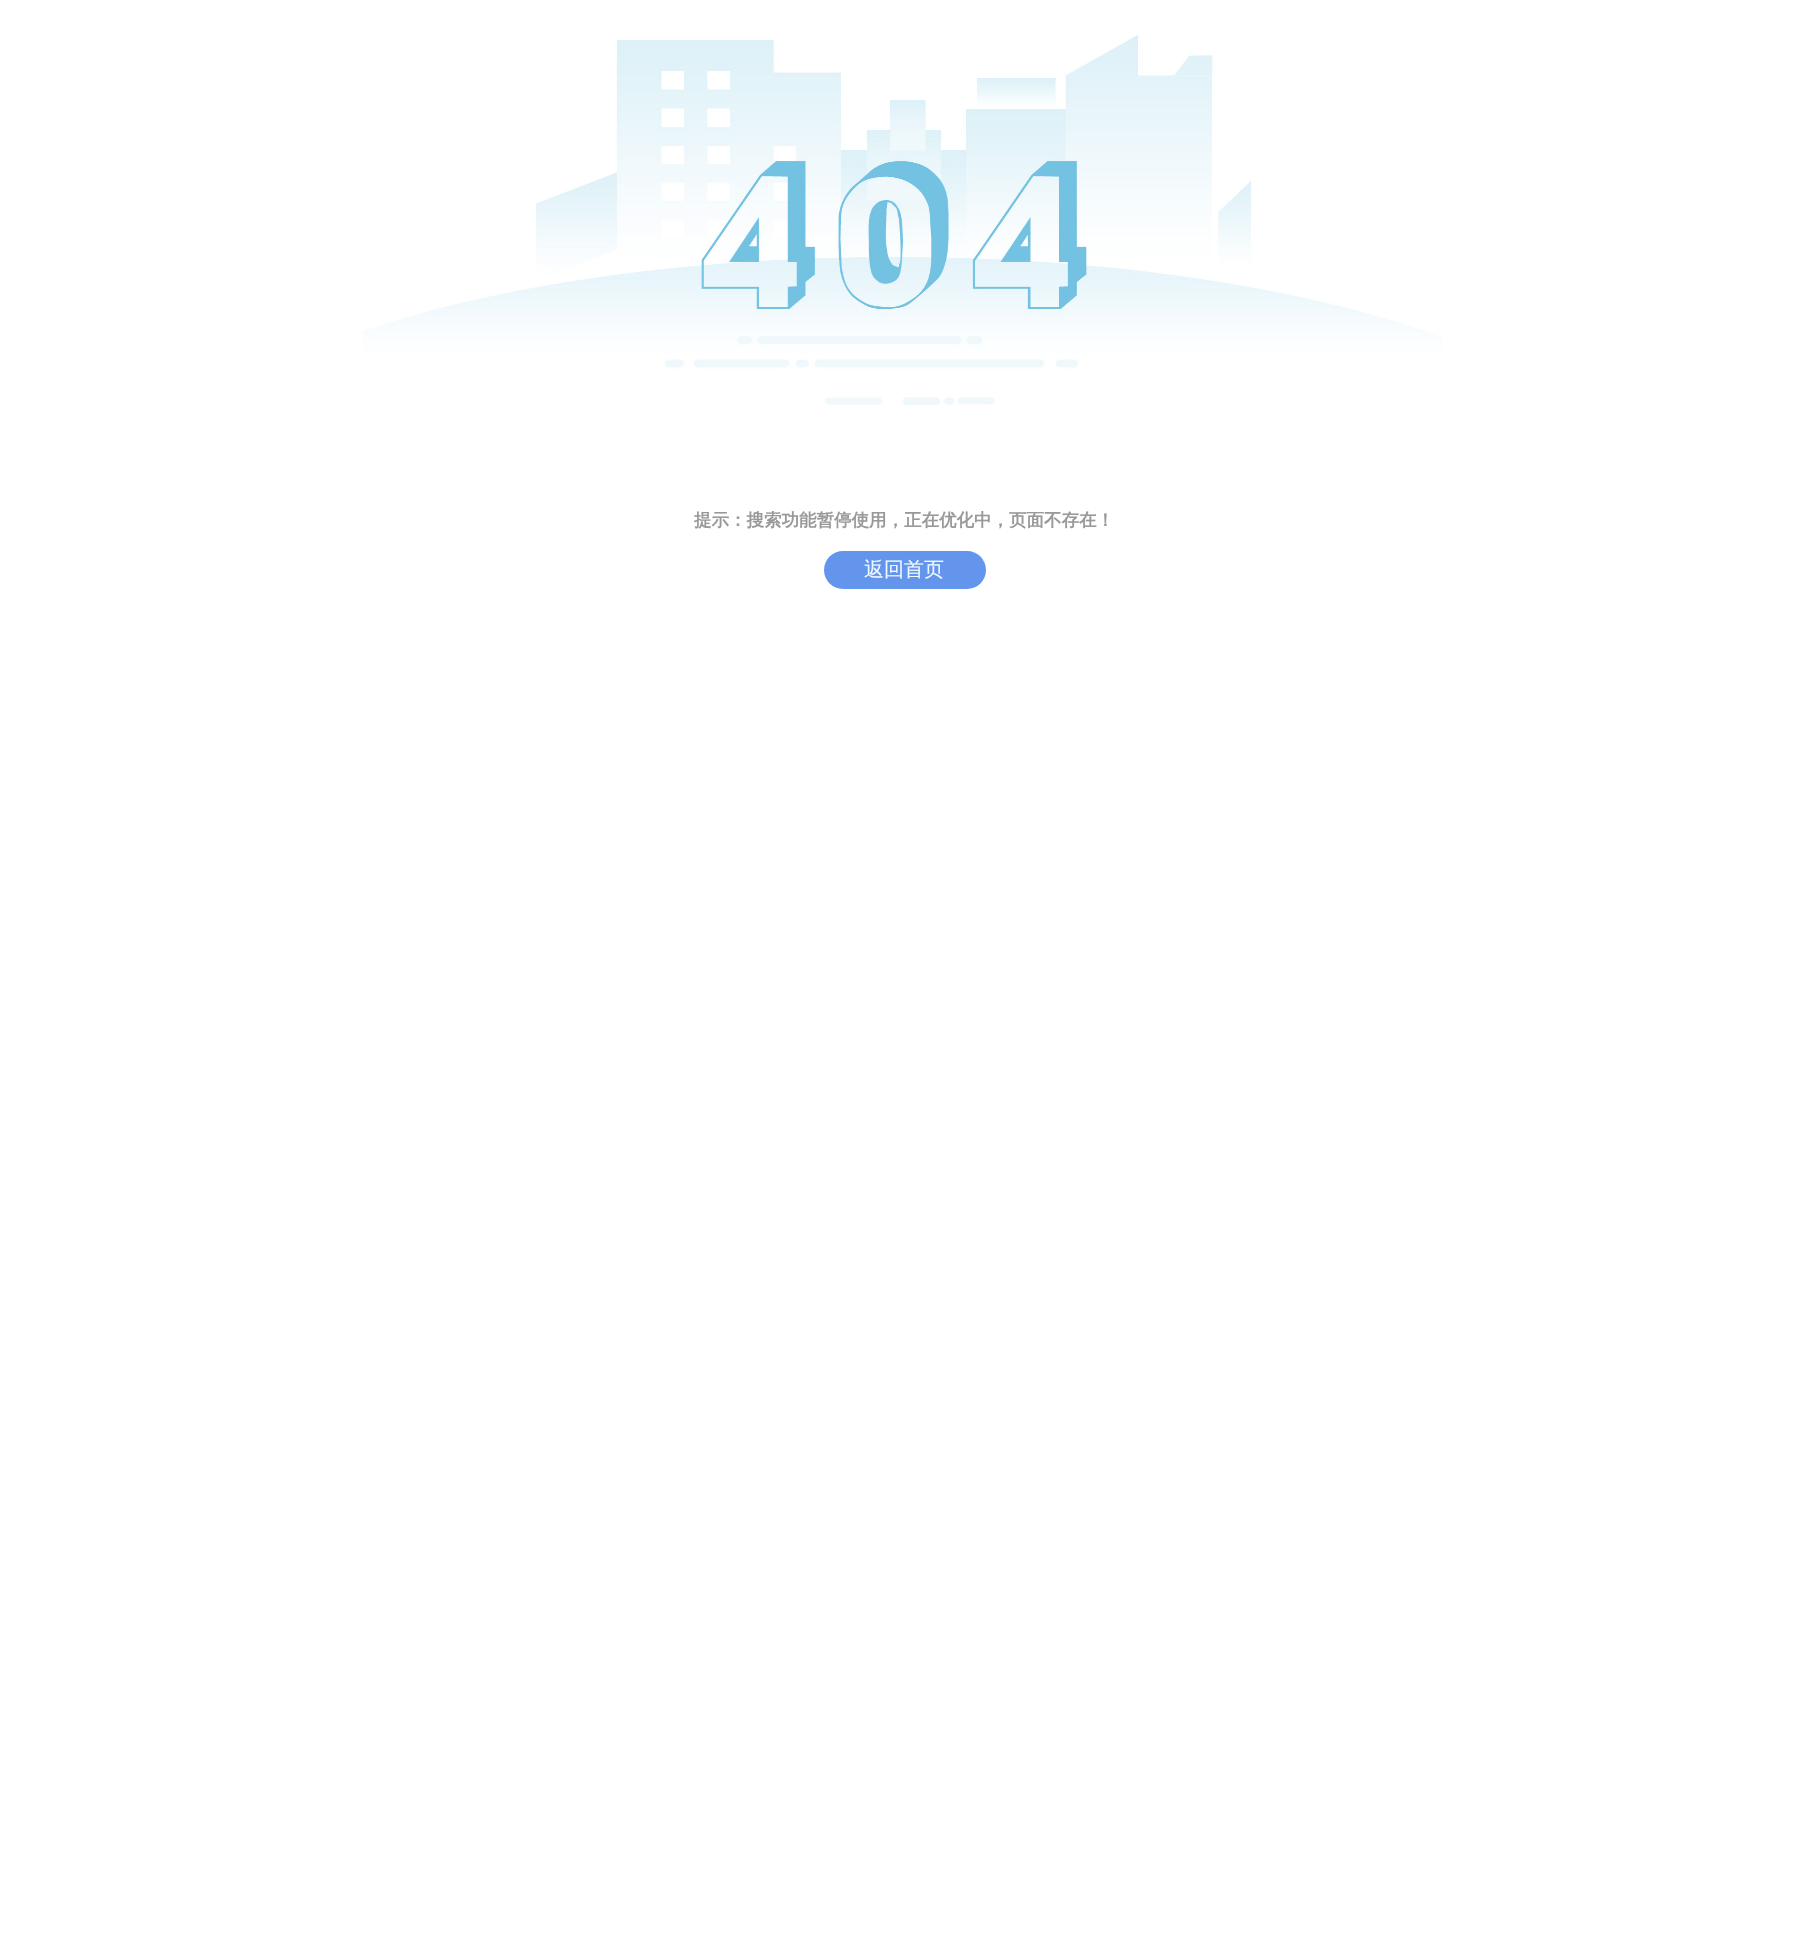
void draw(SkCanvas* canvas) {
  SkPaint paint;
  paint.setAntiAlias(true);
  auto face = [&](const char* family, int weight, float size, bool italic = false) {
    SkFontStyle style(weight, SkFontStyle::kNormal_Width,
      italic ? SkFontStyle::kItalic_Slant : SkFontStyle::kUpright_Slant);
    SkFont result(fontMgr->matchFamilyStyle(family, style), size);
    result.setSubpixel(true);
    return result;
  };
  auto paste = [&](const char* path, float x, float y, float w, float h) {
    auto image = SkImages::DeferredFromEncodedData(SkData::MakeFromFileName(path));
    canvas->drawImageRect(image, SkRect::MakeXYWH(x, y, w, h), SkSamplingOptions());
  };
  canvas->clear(0xffffffff);
  paste("img/1.png", 363, 35, 1079, 370);
  paint.setColor(0xff6495ed);
  canvas->drawRoundRect(SkRect::MakeXYWH(824, 551, 162, 38), 19, 19, paint);
  auto f0 = face("WenQuanYi Zen Hei", 700, 17.5f);
  paint.setColor(0xff999999);
  canvas->drawString("提示：搜索功能暂停使用，正在优化中，页面不存在！", 694, 526, f0, paint);
  auto f1 = face("WenQuanYi Zen Hei", 500, 20);
  paint.setColor(0xfff0f8ff);
  canvas->drawString("返回首页", 864, 576, f1, paint);
}
